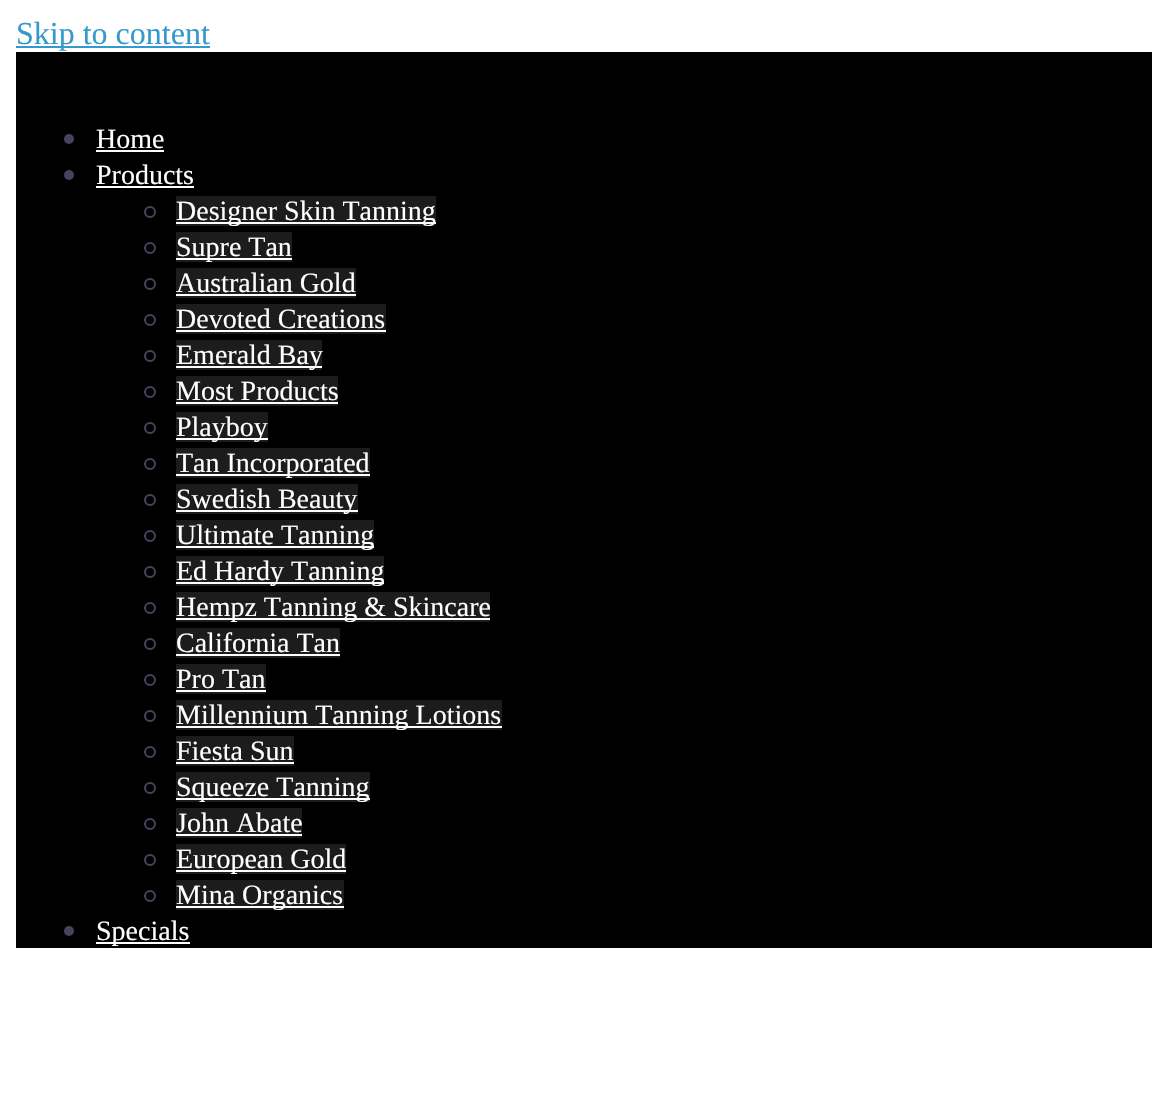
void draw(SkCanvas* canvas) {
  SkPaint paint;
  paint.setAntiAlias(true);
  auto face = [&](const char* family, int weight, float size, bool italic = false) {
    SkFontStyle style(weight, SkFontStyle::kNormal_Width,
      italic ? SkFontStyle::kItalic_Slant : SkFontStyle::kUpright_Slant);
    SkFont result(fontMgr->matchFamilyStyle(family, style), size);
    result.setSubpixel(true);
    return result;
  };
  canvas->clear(0xffffffff);
  paint.setColor(0xff3599cc);
  canvas->drawRect(SkRect::MakeXYWH(16, 46, 194, 2), paint);
  paint.setColor(0xff000000);
  canvas->drawRect(SkRect::MakeXYWH(16, 52, 1136, 896), paint);
  paint.setColor(0xff47425d);
  canvas->drawCircle(69, 139, 5, paint);
  paint.setColor(0xffffffff);
  canvas->drawRect(SkRect::MakeXYWH(96, 150, 68, 2), paint);
  paint.setColor(0xff47425d);
  canvas->drawCircle(69, 175, 5, paint);
  paint.setColor(0xffffffff);
  canvas->drawRect(SkRect::MakeXYWH(96, 186, 98, 2), paint);
  paint.setStroke(true);
  paint.setStrokeWidth(2);
  paint.setColor(0xff47425d);
  canvas->drawCircle(150, 212, 5, paint);
  paint.setStroke(false);
  paint.setColor(0xff1c1c1c);
  canvas->drawRect(SkRect::MakeXYWH(176, 196, 260, 30), paint);
  paint.setColor(0xffffffff);
  canvas->drawRect(SkRect::MakeXYWH(176, 222, 260, 2), paint);
  paint.setStroke(true);
  paint.setColor(0xff47425d);
  canvas->drawCircle(150, 248, 5, paint);
  paint.setStroke(false);
  paint.setColor(0xff1c1c1c);
  canvas->drawRect(SkRect::MakeXYWH(176, 232, 116, 30), paint);
  paint.setColor(0xffffffff);
  canvas->drawRect(SkRect::MakeXYWH(176, 258, 116, 2), paint);
  paint.setStroke(true);
  paint.setColor(0xff47425d);
  canvas->drawCircle(150, 284, 5, paint);
  paint.setStroke(false);
  paint.setColor(0xff1c1c1c);
  canvas->drawRect(SkRect::MakeXYWH(176, 268, 180, 30), paint);
  paint.setColor(0xffffffff);
  canvas->drawRect(SkRect::MakeXYWH(176, 294, 180, 2), paint);
  paint.setStroke(true);
  paint.setColor(0xff47425d);
  canvas->drawCircle(150, 320, 5, paint);
  paint.setStroke(false);
  paint.setColor(0xff1c1c1c);
  canvas->drawRect(SkRect::MakeXYWH(176, 304, 210, 30), paint);
  paint.setColor(0xffffffff);
  canvas->drawRect(SkRect::MakeXYWH(176, 330, 210, 2), paint);
  paint.setStroke(true);
  paint.setColor(0xff47425d);
  canvas->drawCircle(150, 356, 5, paint);
  paint.setStroke(false);
  paint.setColor(0xff1c1c1c);
  canvas->drawRect(SkRect::MakeXYWH(176, 340, 146, 30), paint);
  paint.setColor(0xffffffff);
  canvas->drawRect(SkRect::MakeXYWH(176, 366, 146, 2), paint);
  paint.setStroke(true);
  paint.setColor(0xff47425d);
  canvas->drawCircle(150, 392, 5, paint);
  paint.setStroke(false);
  paint.setColor(0xff1c1c1c);
  canvas->drawRect(SkRect::MakeXYWH(176, 376, 162, 30), paint);
  paint.setColor(0xffffffff);
  canvas->drawRect(SkRect::MakeXYWH(176, 402, 162, 2), paint);
  paint.setStroke(true);
  paint.setColor(0xff47425d);
  canvas->drawCircle(150, 428, 5, paint);
  paint.setStroke(false);
  paint.setColor(0xff1c1c1c);
  canvas->drawRect(SkRect::MakeXYWH(176, 412, 92, 30), paint);
  paint.setColor(0xffffffff);
  canvas->drawRect(SkRect::MakeXYWH(176, 438, 92, 2), paint);
  paint.setStroke(true);
  paint.setColor(0xff47425d);
  canvas->drawCircle(150, 464, 5, paint);
  paint.setStroke(false);
  paint.setColor(0xff1c1c1c);
  canvas->drawRect(SkRect::MakeXYWH(176, 448, 194, 30), paint);
  paint.setColor(0xffffffff);
  canvas->drawRect(SkRect::MakeXYWH(176, 474, 194, 2), paint);
  paint.setStroke(true);
  paint.setColor(0xff47425d);
  canvas->drawCircle(150, 500, 5, paint);
  paint.setStroke(false);
  paint.setColor(0xff1c1c1c);
  canvas->drawRect(SkRect::MakeXYWH(176, 484, 182, 30), paint);
  paint.setColor(0xffffffff);
  canvas->drawRect(SkRect::MakeXYWH(176, 510, 182, 2), paint);
  paint.setStroke(true);
  paint.setColor(0xff47425d);
  canvas->drawCircle(150, 536, 5, paint);
  paint.setStroke(false);
  paint.setColor(0xff1c1c1c);
  canvas->drawRect(SkRect::MakeXYWH(176, 520, 198, 30), paint);
  paint.setColor(0xffffffff);
  canvas->drawRect(SkRect::MakeXYWH(176, 546, 198, 2), paint);
  paint.setStroke(true);
  paint.setColor(0xff47425d);
  canvas->drawCircle(150, 572, 5, paint);
  paint.setStroke(false);
  paint.setColor(0xff1c1c1c);
  canvas->drawRect(SkRect::MakeXYWH(176, 556, 208, 30), paint);
  paint.setColor(0xffffffff);
  canvas->drawRect(SkRect::MakeXYWH(176, 582, 208, 2), paint);
  paint.setStroke(true);
  paint.setColor(0xff47425d);
  canvas->drawCircle(150, 608, 5, paint);
  paint.setStroke(false);
  paint.setColor(0xff1c1c1c);
  canvas->drawRect(SkRect::MakeXYWH(176, 592, 314, 30), paint);
  paint.setColor(0xffffffff);
  canvas->drawRect(SkRect::MakeXYWH(176, 618, 314, 2), paint);
  paint.setStroke(true);
  paint.setColor(0xff47425d);
  canvas->drawCircle(150, 644, 5, paint);
  paint.setStroke(false);
  paint.setColor(0xff1c1c1c);
  canvas->drawRect(SkRect::MakeXYWH(176, 628, 164, 30), paint);
  paint.setColor(0xffffffff);
  canvas->drawRect(SkRect::MakeXYWH(176, 654, 164, 2), paint);
  paint.setStroke(true);
  paint.setColor(0xff47425d);
  canvas->drawCircle(150, 680, 5, paint);
  paint.setStroke(false);
  paint.setColor(0xff1c1c1c);
  canvas->drawRect(SkRect::MakeXYWH(176, 664, 90, 30), paint);
  paint.setColor(0xffffffff);
  canvas->drawRect(SkRect::MakeXYWH(176, 690, 90, 2), paint);
  paint.setStroke(true);
  paint.setColor(0xff47425d);
  canvas->drawCircle(150, 716, 5, paint);
  paint.setStroke(false);
  paint.setColor(0xff1c1c1c);
  canvas->drawRect(SkRect::MakeXYWH(176, 700, 326, 30), paint);
  paint.setColor(0xffffffff);
  canvas->drawRect(SkRect::MakeXYWH(176, 726, 326, 2), paint);
  paint.setStroke(true);
  paint.setColor(0xff47425d);
  canvas->drawCircle(150, 752, 5, paint);
  paint.setStroke(false);
  paint.setColor(0xff1c1c1c);
  canvas->drawRect(SkRect::MakeXYWH(176, 736, 118, 30), paint);
  paint.setColor(0xffffffff);
  canvas->drawRect(SkRect::MakeXYWH(176, 762, 118, 2), paint);
  paint.setStroke(true);
  paint.setColor(0xff47425d);
  canvas->drawCircle(150, 788, 5, paint);
  paint.setStroke(false);
  paint.setColor(0xff1c1c1c);
  canvas->drawRect(SkRect::MakeXYWH(176, 772, 194, 30), paint);
  paint.setColor(0xffffffff);
  canvas->drawRect(SkRect::MakeXYWH(176, 798, 194, 2), paint);
  paint.setStroke(true);
  paint.setColor(0xff47425d);
  canvas->drawCircle(150, 824, 5, paint);
  paint.setStroke(false);
  paint.setColor(0xff1c1c1c);
  canvas->drawRect(SkRect::MakeXYWH(176, 808, 126, 30), paint);
  paint.setColor(0xffffffff);
  canvas->drawRect(SkRect::MakeXYWH(176, 834, 126, 2), paint);
  paint.setStroke(true);
  paint.setColor(0xff47425d);
  canvas->drawCircle(150, 860, 5, paint);
  paint.setStroke(false);
  paint.setColor(0xff1c1c1c);
  canvas->drawRect(SkRect::MakeXYWH(176, 844, 170, 30), paint);
  paint.setColor(0xffffffff);
  canvas->drawRect(SkRect::MakeXYWH(176, 870, 170, 2), paint);
  paint.setStroke(true);
  paint.setColor(0xff47425d);
  canvas->drawCircle(150, 896, 5, paint);
  paint.setStroke(false);
  paint.setColor(0xff1c1c1c);
  canvas->drawRect(SkRect::MakeXYWH(176, 880, 168, 30), paint);
  paint.setColor(0xffffffff);
  canvas->drawRect(SkRect::MakeXYWH(176, 906, 168, 2), paint);
  paint.setColor(0xff47425d);
  canvas->drawCircle(69, 931, 5, paint);
  paint.setColor(0xffffffff);
  canvas->drawRect(SkRect::MakeXYWH(96, 942, 94, 2), paint);
  auto f0 = face("Liberation Serif", 400, 32);
  paint.setColor(0xff3599cc);
  canvas->drawString("Skip to content", 16, 44, f0, paint);
  auto f1 = face("Liberation Serif", 400, 28);
  paint.setColor(0xffffffff);
  {
    const struct { const char* s; float x, y; } items[] = {
      {"Home", 96, 148},
      {"Products", 96, 184},
      {"Designer Skin Tanning", 176, 220},
      {"Supre Tan", 176, 256},
      {"Australian Gold", 176, 292},
      {"Devoted Creations", 176, 328},
      {"Emerald Bay", 176, 364},
      {"Most Products", 176, 400},
      {"Playboy", 176, 436},
      {"Tan Incorporated", 176, 472},
      {"Swedish Beauty", 176, 508},
      {"Ultimate Tanning", 176, 544},
      {"Ed Hardy Tanning", 176, 580},
      {"Hempz Tanning & Skincare", 176, 616},
      {"California Tan", 176, 652},
      {"Pro Tan", 176, 688},
      {"Millennium Tanning Lotions", 176, 724},
      {"Fiesta Sun", 176, 760},
      {"Squeeze Tanning", 176, 796},
      {"John Abate", 176, 832},
      {"European Gold", 176, 868},
      {"Mina Organics", 176, 904},
      {"Specials", 96, 940},
    };
    for (auto [s, x, y] : items) {
      canvas->drawString(s, x, y, f1, paint);
    }
  }
}
